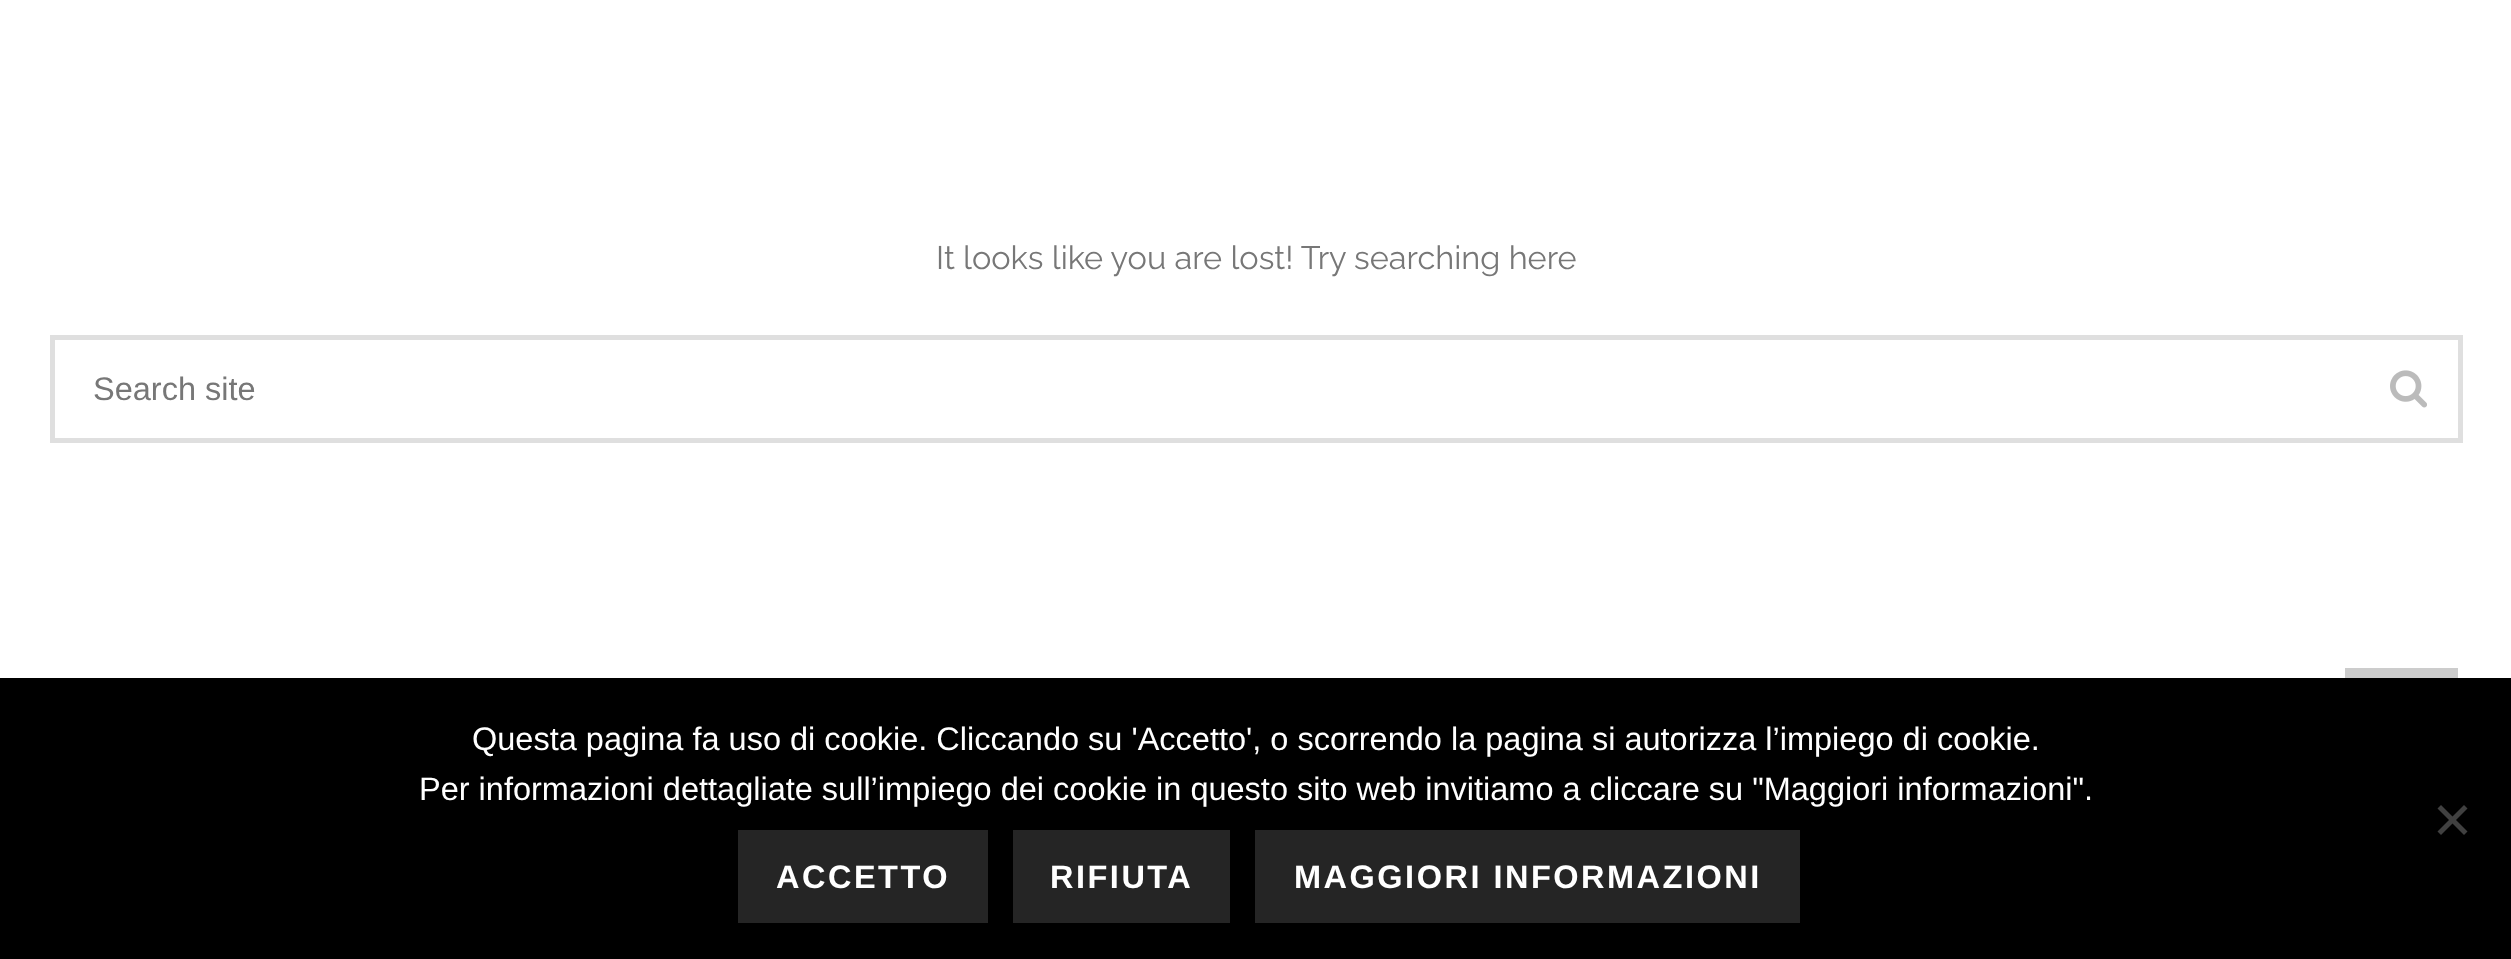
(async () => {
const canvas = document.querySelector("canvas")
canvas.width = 2511
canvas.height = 959
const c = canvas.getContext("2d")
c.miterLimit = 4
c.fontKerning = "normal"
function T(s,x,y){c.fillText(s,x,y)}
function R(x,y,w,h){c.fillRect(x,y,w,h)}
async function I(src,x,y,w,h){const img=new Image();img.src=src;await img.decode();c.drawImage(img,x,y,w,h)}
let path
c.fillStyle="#fff"
R(0,0,2511,959)
c.font="32.5px Raleway"
c.fillStyle="#777"
T("It looks like you are lost! Try searching here",936,269)
c.strokeStyle="#dfdfdf"
c.lineWidth=5
c.strokeRect(52.5,337.5,2408,103)
c.font="32.5px Liberation Sans"
T("Search site",93,400)
await I("1.png",2390,370,37,38)
c.fillStyle="#ccc"
R(2345,668,113,10)
c.fillStyle="#000"
R(0,678,2511,281)
c.fillStyle="#fff"
T("Questa pagina fa uso di cookie. Cliccando su 'Accetto', o scorrendo la pagina si autorizza l’impiego di cookie.",472,750)
T("Per informazioni dettagliate sull’impiego dei cookie in questo sito web invitiamo a cliccare su \"Maggiori informazioni\".",419,800)
c.fillStyle="#404040"
path = new Path2D("M2464 805l3.5 3.5l-26.5 26.5l-3.5-3.5z")
c.fill(path)
path = new Path2D("M2437.5 808.5l3.5-3.5l26.5 26.5l-3.5 3.5z")
c.fill(path)
c.fillStyle="#252525"
R(738,830,250,93)
c.letterSpacing="2.5px"
c.font="bold 32.5px Liberation Sans"
c.fillStyle="#fff"
T("ACCETTO",776,888)
c.fillStyle="#252525"
R(1013,830,217,93)
c.fillStyle="#fff"
T("RIFIUTA",1050,888)
c.fillStyle="#252525"
R(1255,830,545,93)
c.fillStyle="#fff"
T("MAGGIORI INFORMAZIONI",1294,888)
})()
